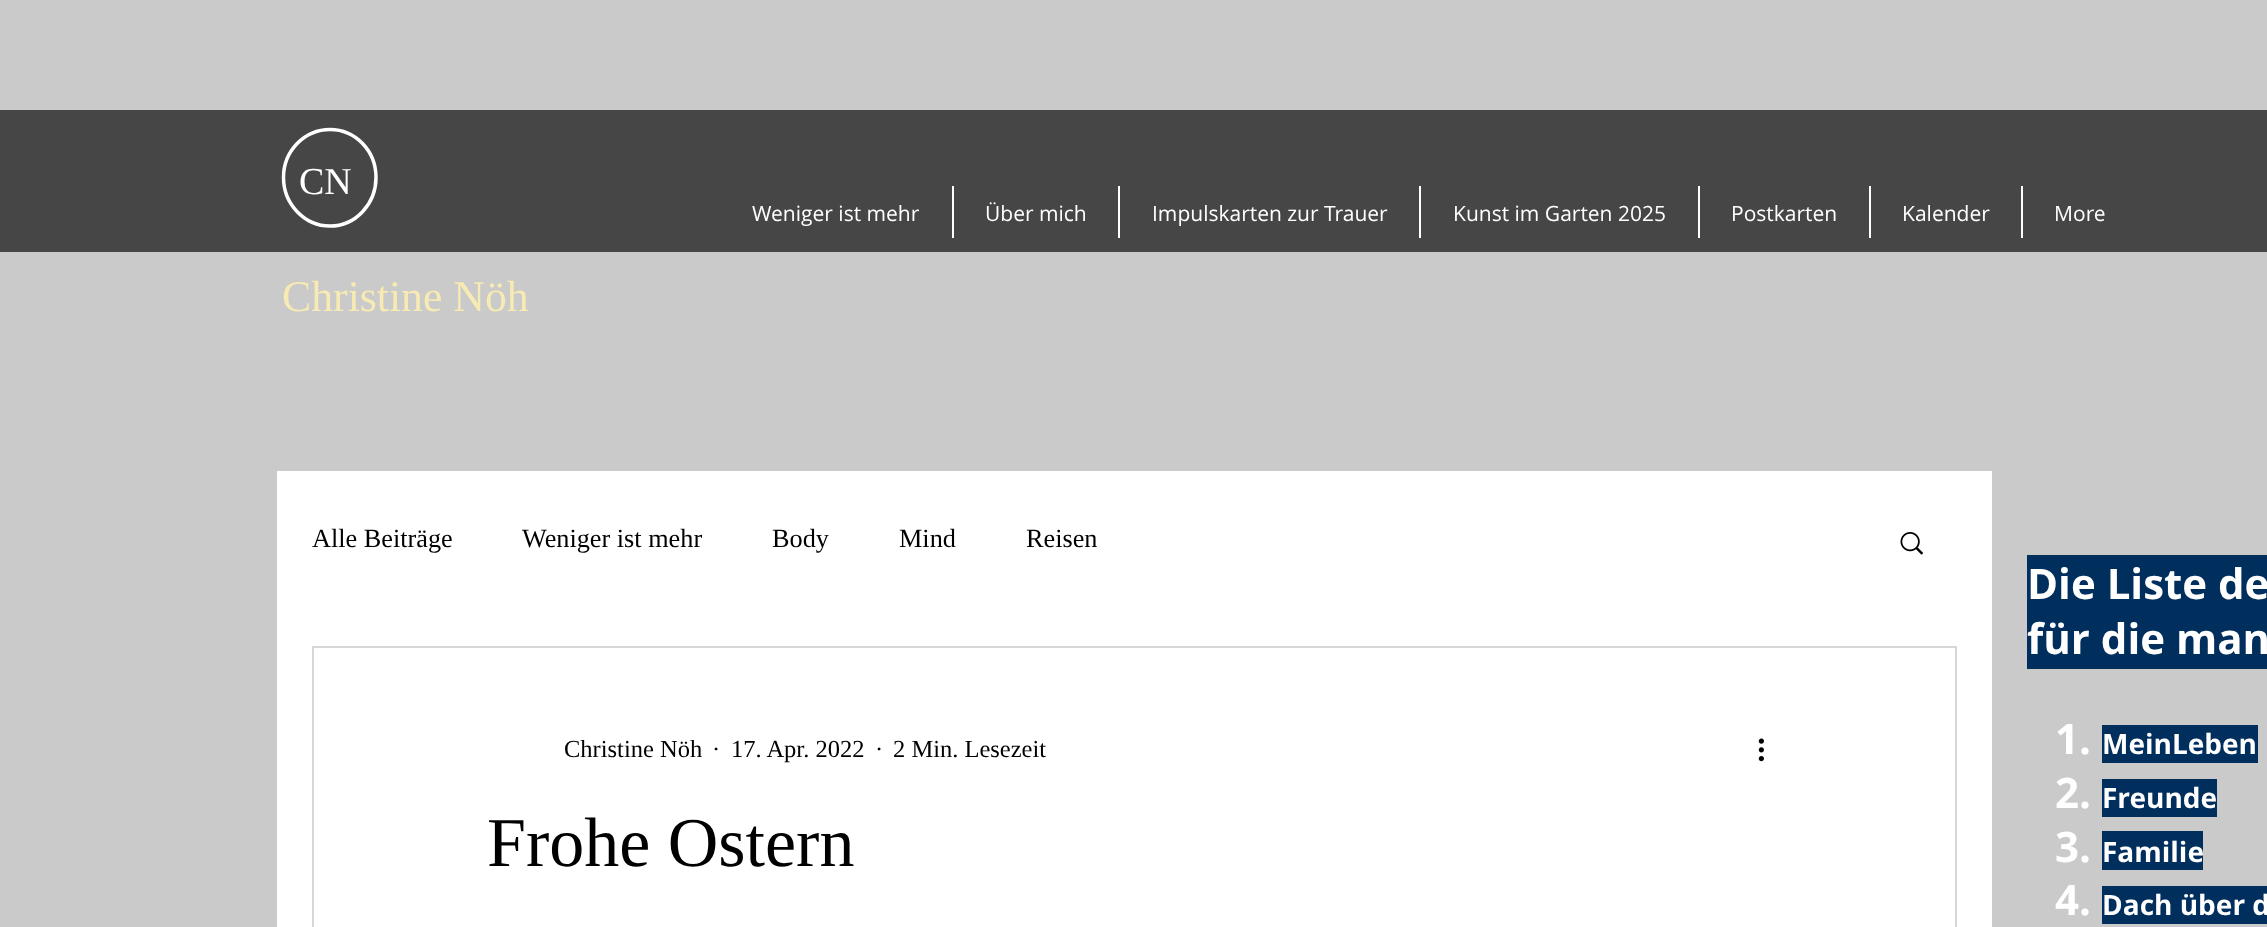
(async () => {
const canvas = document.querySelector("canvas")
canvas.width = 2267
canvas.height = 927
const c = canvas.getContext("2d")
c.miterLimit = 4
c.fontKerning = "normal"
function T(s,x,y){c.fillText(s,x,y)}
function R(x,y,w,h){c.fillRect(x,y,w,h)}
async function I(src,x,y,w,h){const img=new Image();img.src=src;await img.decode();c.drawImage(img,x,y,w,h)}
let path
c.fillStyle="#cacaca"
R(0,0,2267,927)
c.fillStyle="#464646"
R(0,110,2267,142)
path = new Path2D("M330 129.5c25.5 0 46 21.5 46 48c0 26.5-20.5 48.5-46 48.5c-25.5 0-46.5-22-46.5-48.5c0-26.5 21-48 46.5-48z")
c.strokeStyle="#fff"
c.lineWidth=3.5
c.stroke(path)
c.font="38px Liberation Serif"
c.fillStyle="#fff"
T("CN",299,194)
c.font="21px Open Sans"
T("Weniger ist mehr",752,221)
R(952,186,2,52)
T("Über mich",985,221)
R(1118,186,2,52)
T("Impulskarten zur Trauer",1152,221)
R(1419,186,2,52)
T("Kunst im Garten 2025",1453,221)
R(1698,186,2,52)
T("Postkarten",1731,221)
R(1869,186,2,52)
T("Kalender",1902,221)
R(2021,186,2,52)
T("More",2054,221)
c.font="43.75px Liberation Serif"
c.fillStyle="#f7eab3"
T("Christine Nöh",282,311)
c.fillStyle="#fff"
R(277,471,1715,456)
c.font="26.25px Liberation Serif"
c.fillStyle="#000"
T("Alle Beiträge",312,547)
T("Weniger ist mehr",522,547)
T("Body",772,547)
T("Mind",899,547)
T("Reisen",1026,547)
await I("1.png",1900,532,23,23)
c.strokeStyle="#d7d7d7"
c.lineWidth=2
c.strokeRect(313,647,1643,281)
c.font="24.5px Liberation Serif"
T("Christine Nöh",564,757)
T("·",712,757)
T("17. Apr. 2022",731,757)
T("·",875,757)
T("2 Min. Lesezeit",893,757)
await I("2.png",1758,738,6,24)
c.font="70px Liberation Serif"
T("Frohe Ostern",487,866)
c.fillStyle="#002e5d"
R(2027,555,240,114)
c.font="bold 42px Open Sans"
c.fillStyle="#fff"
T("Die Liste de",2027,599)
T("für die man",2027,654)
T("1.",2055,754)
c.fillStyle="#002e5d"
R(2102,725,156,38)
c.font="bold 28px Open Sans"
c.fillStyle="#fff"
T("MeinLeben",2102,754)
c.font="bold 42px Open Sans"
T("2.",2055,808)
c.fillStyle="#002e5d"
R(2102,779,115,38)
c.font="bold 28px Open Sans"
c.fillStyle="#fff"
T("Freunde",2102,808)
c.font="bold 42px Open Sans"
T("3.",2055,862)
c.fillStyle="#002e5d"
R(2102,831,101,39)
c.font="bold 28px Open Sans"
c.fillStyle="#fff"
T("Familie",2102,862)
c.font="bold 42px Open Sans"
T("4.",2055,915)
c.fillStyle="#002e5d"
R(2102,886,165,38)
c.font="bold 28px Open Sans"
c.fillStyle="#fff"
T("Dach über d",2102,915)
})()
